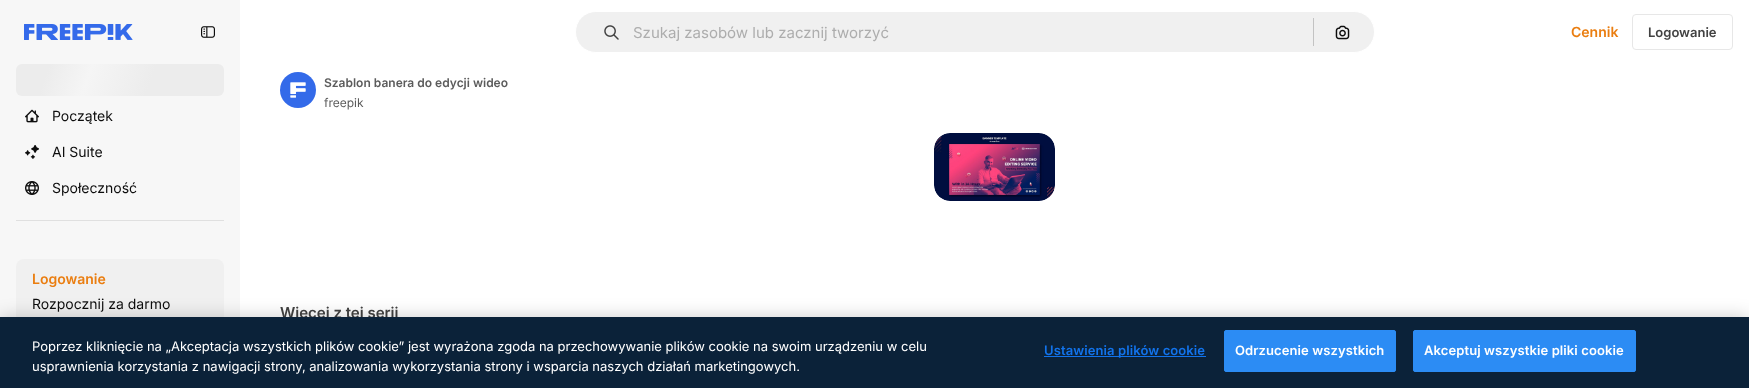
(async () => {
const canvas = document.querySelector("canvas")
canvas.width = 1749
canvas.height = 388
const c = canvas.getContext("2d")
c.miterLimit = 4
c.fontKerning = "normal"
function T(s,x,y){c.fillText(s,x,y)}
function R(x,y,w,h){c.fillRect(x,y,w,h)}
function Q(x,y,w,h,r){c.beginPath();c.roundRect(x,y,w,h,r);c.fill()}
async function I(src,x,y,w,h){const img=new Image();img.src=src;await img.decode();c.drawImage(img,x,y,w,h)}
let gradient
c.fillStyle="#fff"
R(0,0,1749,388)
c.fillStyle="#f7f7f7"
R(0,0,240,317)
await I("1.png",24,24,109,16)
await I("2.png",201,26,14,12)
gradient = c.createLinearGradient(35,11,413,149)
gradient.addColorStop(.08,"#ececec")
gradient.addColorStop(.18,"#f5f5f5")
gradient.addColorStop(.33,"#ececec")
c.fillStyle = gradient
Q(16,64,208,32,6)
await I("3.png",25,109,14,14)
c.font="14px Inter"
c.fillStyle="#0d0d0d"
T("Początek",52,121)
await I("4.png",25,145,14,14)
T("AI Suite",52,157)
await I("5.png",25,181,14,14)
T("Społeczność",52,193)
c.fillStyle="#e0e0e0"
R(16,220,208,1)
c.fillStyle="#f0f0f0"
Q(16,259,208,65,8)
c.font="600 14px Inter"
c.fillStyle="#ea7e11"
T("Logowanie",32,284)
c.font="14px Inter"
c.fillStyle="#0d0d0d"
T("Rozpocznij za darmo",32,309)
c.fillStyle="#f0f0f0"
c.beginPath()
c.roundRect(575.5,11.5,799,41,20.5)
c.fill()
c.strokeStyle="#fff"
c.stroke()
await I("6.png",604,25,15,15)
c.font="15px Inter"
c.fillStyle="#adadad"
T("Szukaj zasobów lub zacznij tworzyć",633,38)
c.fillStyle="#c3c3c3"
R(1313,18,1,28)
await I("7.png",1335,25,15,15)
c.font="600 14px Inter"
c.fillStyle="#ea7e11"
T("Cennik",1571,37)
c.beginPath()
c.roundRect(1632.5,14.5,100,35,3.5)
c.strokeStyle="#e7e7e7"
c.stroke()
c.font="600 13px Inter"
c.fillStyle="#424242"
T("Logowanie",1648,37)
await I("8.png",280,72,36,36)
c.font="600 12px Inter"
c.fillStyle="#5c5c5c"
T("Szablon banera do edycji wideo",324,87)
c.font="12px Inter"
T("freepik",324,107)
await I("9.png",934,133,121,68)
c.font="600 15px Inter"
c.fillStyle="#424242"
T("Więcej z tej serii",280,318)
c.fillStyle="#00000033"
c.filter="blur(9px)"
c.beginPath()
c.rect(0,317,1749,71)
c.fill()
c.filter="none"
c.fillStyle="#0b2239"
R(0,317,1749,71)
c.font="13px Inter"
c.fillStyle="#fff"
T("Poprzez kliknięcie na „Akceptacja wszystkich plików cookie” jest wyrażona zgoda na przechowywanie plików cookie na swoim urządzeniu w celu",32,351)
T("usprawnienia korzystania z nawigacji strony, analizowania wykorzystania strony i wsparcia naszych działań marketingowych.",32,371)
c.fillStyle="#1273eb"
R(1044,356,162,1)
c.letterSpacing="0.1px"
c.font="600 13px Inter"
T("Ustawienia plików cookie",1044,355)
c.fillStyle="#2c8cf4"
c.beginPath()
c.roundRect(1224.5,330.5,171,41,1.5)
c.fill()
c.strokeStyle="#2c8cf4"
c.stroke()
c.fillStyle="#fff"
T("Odrzucenie wszystkich",1235,355)
c.fillStyle="#2c8cf4"
c.beginPath()
c.roundRect(1413.5,330.5,222,41,1.5)
c.fill()
c.stroke()
c.fillStyle="#fff"
T("Akceptuj wszystkie pliki cookie",1424,355)
})()
